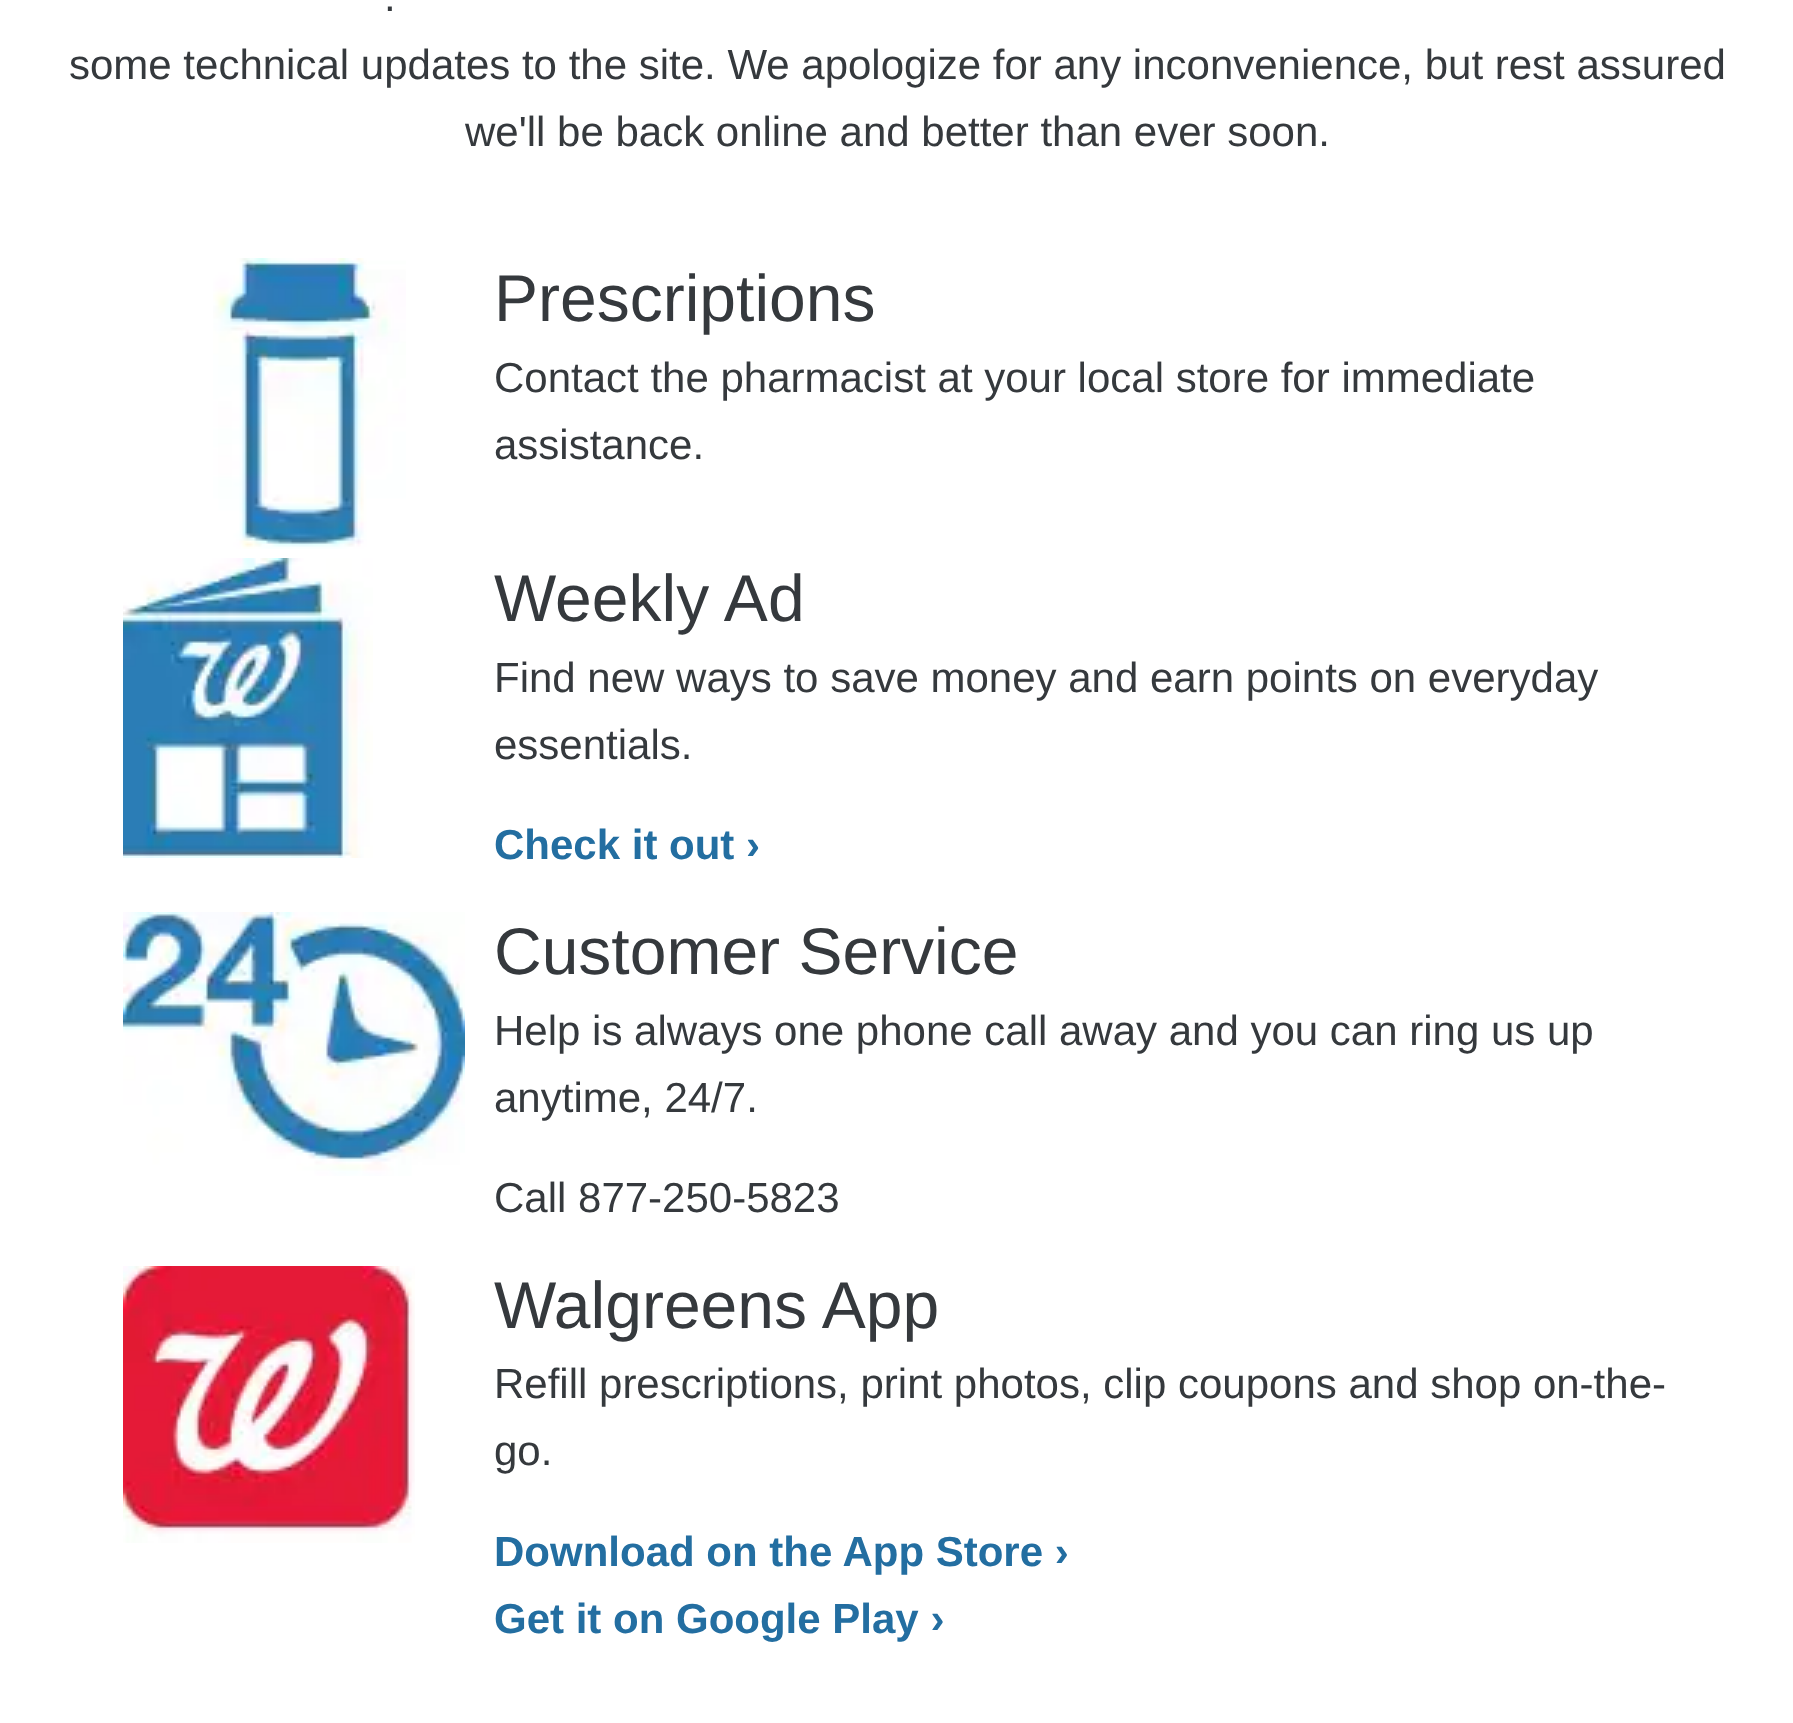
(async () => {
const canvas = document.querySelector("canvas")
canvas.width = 1793
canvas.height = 1723
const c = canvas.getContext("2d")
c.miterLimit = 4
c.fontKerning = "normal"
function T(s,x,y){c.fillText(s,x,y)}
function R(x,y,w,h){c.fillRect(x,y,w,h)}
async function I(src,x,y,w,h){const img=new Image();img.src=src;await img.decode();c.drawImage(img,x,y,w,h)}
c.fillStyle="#fff"
R(0,0,1793,1723)
c.font="42px Liberation Sans"
c.fillStyle="#35393d"
T(".",384,11)
T("some technical updates to the site. We apologize for any inconvenience, but rest assured",69,79)
T("we'll be back online and better than ever soon.",465,146)
await I("1.png",213,258,193,291)
c.font="66px Liberation Sans"
T("Prescriptions",494,321)
c.font="42px Liberation Sans"
T("Contact the pharmacist at your local store for immediate",494,392)
T("assistance.",494,459)
await I("2.png",123,558,250,300)
c.font="66px Liberation Sans"
T("Weekly Ad",494,621)
c.font="42px Liberation Sans"
T("Find new ways to save money and earn points on everyday",494,692)
T("essentials.",494,759)
c.font="bold 42px Liberation Sans"
c.fillStyle="#236ea1"
T("Check it out ›",494,859)
await I("3.png",123,912,342,264)
c.font="66px Liberation Sans"
c.fillStyle="#35393d"
T("Customer Service",494,974)
c.font="42px Liberation Sans"
T("Help is always one phone call away and you can ring us up",494,1045)
T("anytime, 24/7.",494,1112)
T("Call 877-250-5823",494,1212)
await I("4.png",123,1266,292,277)
c.font="66px Liberation Sans"
T("Walgreens App",494,1328)
c.font="42px Liberation Sans"
T("Refill prescriptions, print photos, clip coupons and shop on-the-",494,1398)
T("go.",494,1465)
c.font="bold 42px Liberation Sans"
c.fillStyle="#236ea1"
T("Download on the App Store ›",494,1566)
T("Get it on Google Play ›",494,1633)
})()
